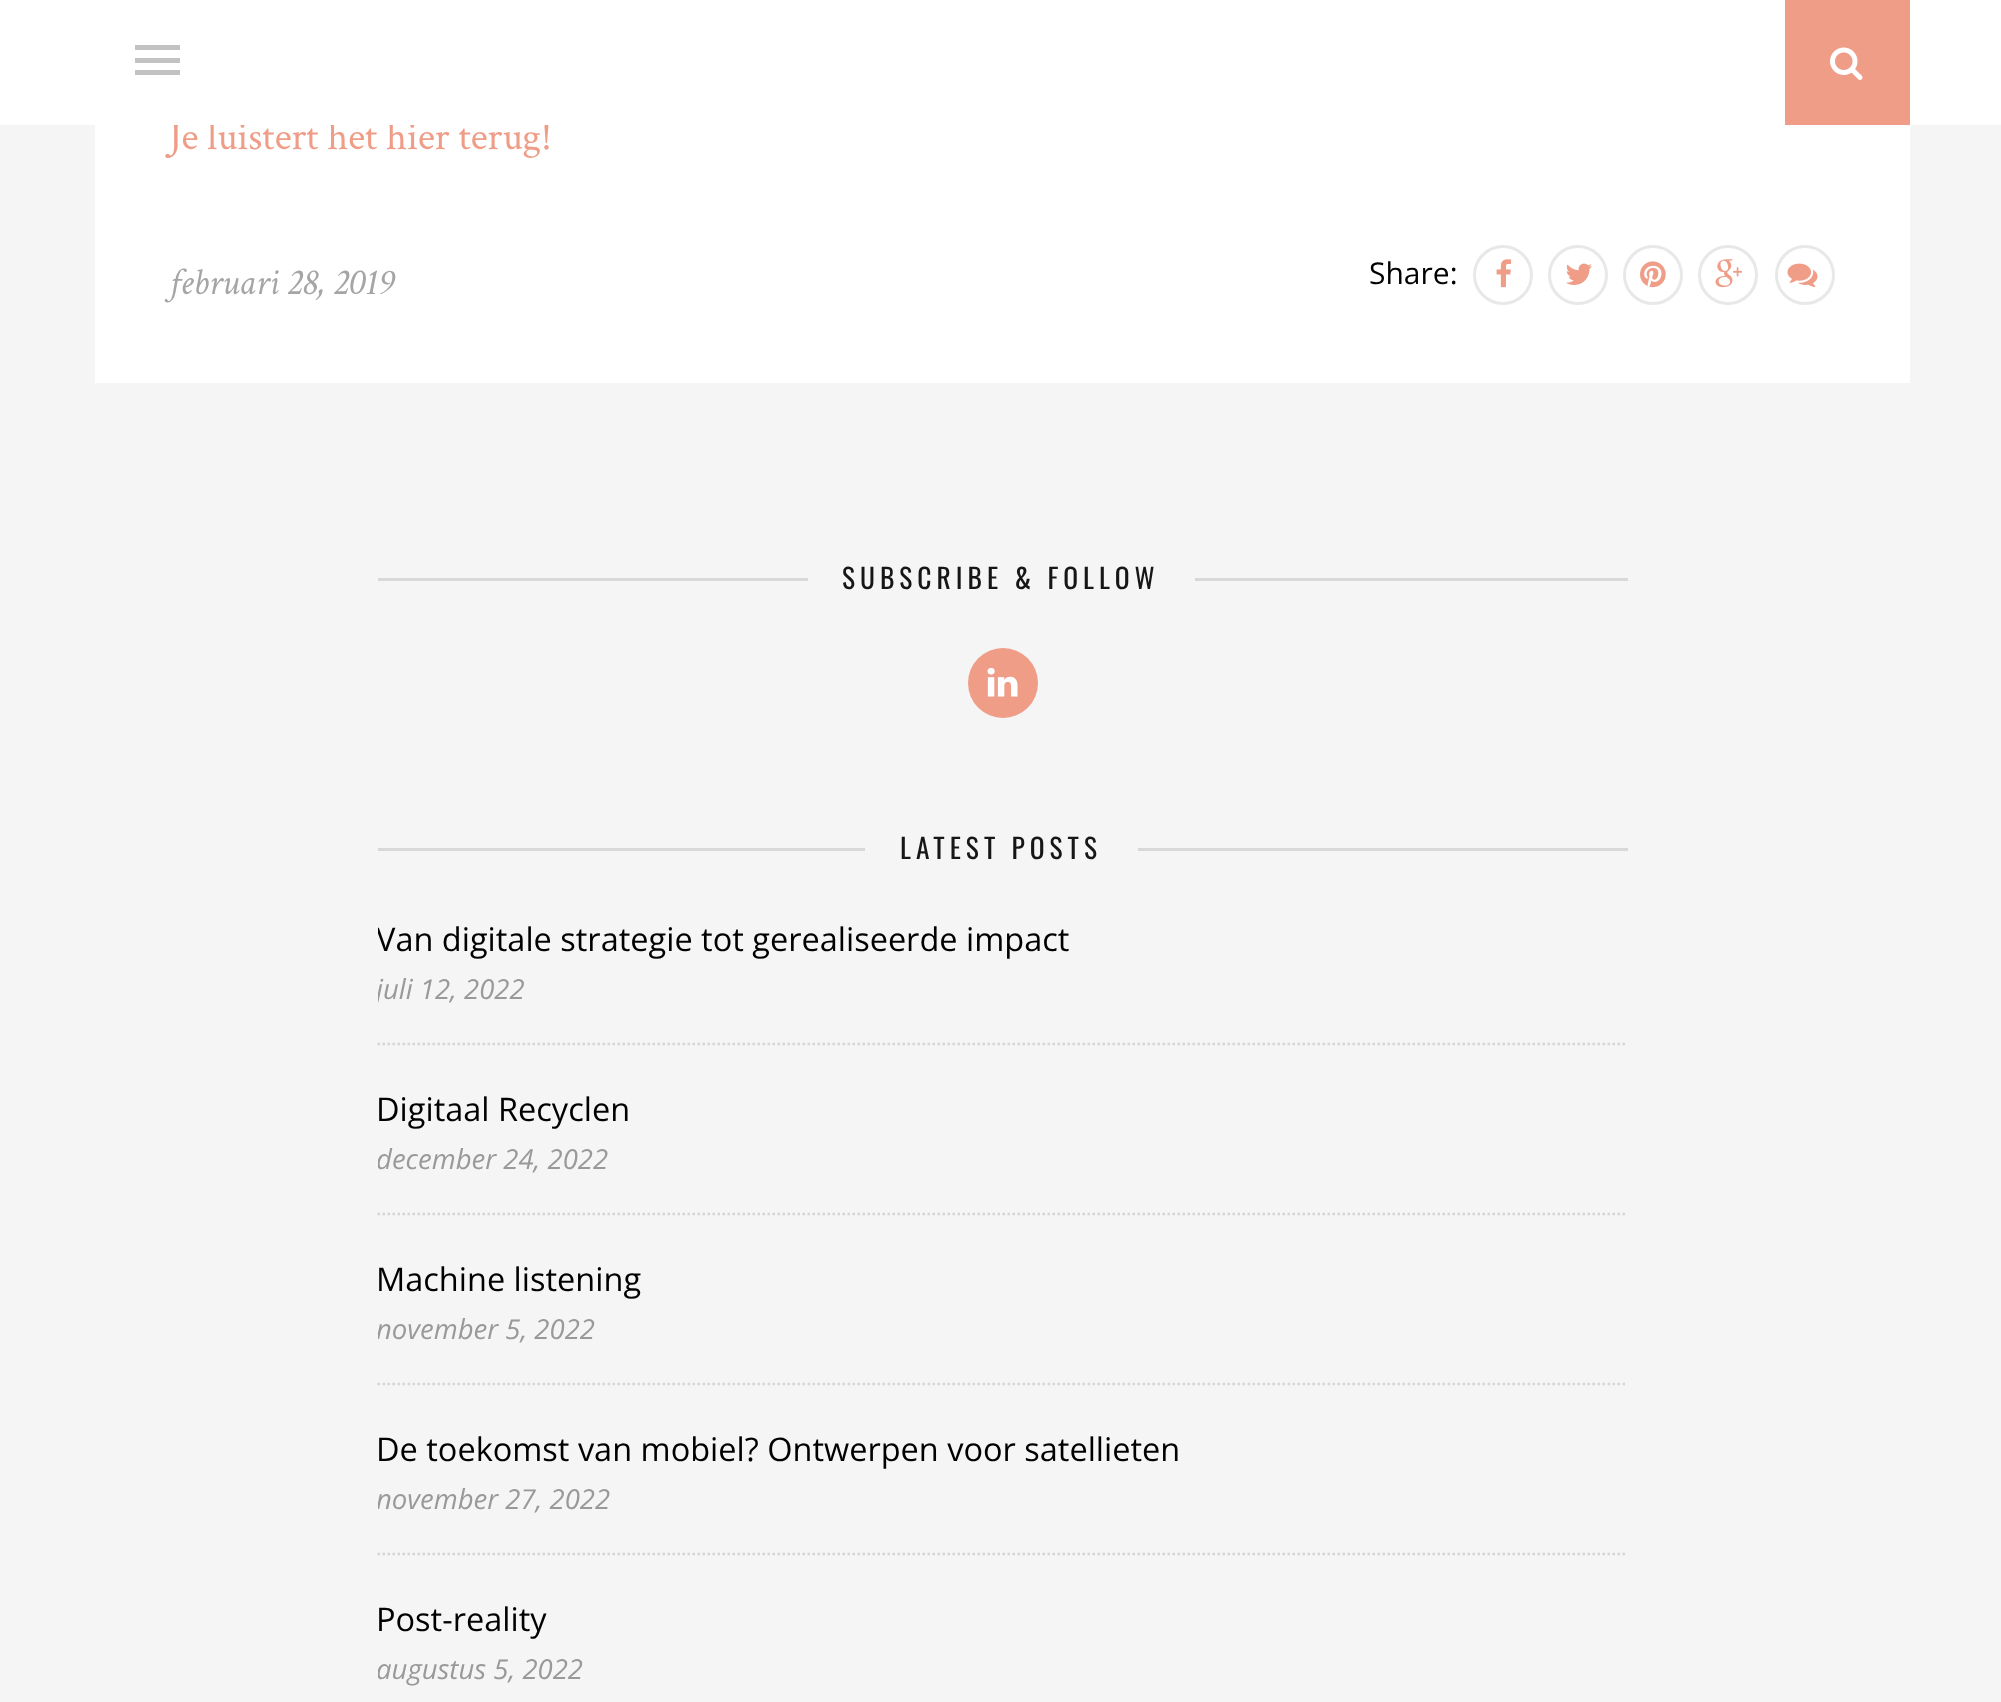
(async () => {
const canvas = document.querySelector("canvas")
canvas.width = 2001
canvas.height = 1702
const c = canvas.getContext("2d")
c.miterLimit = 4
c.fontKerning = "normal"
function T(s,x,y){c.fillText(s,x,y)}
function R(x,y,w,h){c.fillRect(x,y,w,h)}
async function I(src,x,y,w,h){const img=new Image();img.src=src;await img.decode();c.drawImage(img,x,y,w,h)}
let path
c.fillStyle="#f5f5f5"
R(0,0,2001,1702)
c.fillStyle="#fff"
R(95,125,1815,258)
c.font="40px Crimson Text"
c.fillStyle="#ef9d87"
T("Je luistert het hier terug!",169,149)
c.fillStyle="#fff"
R(0,0,2001,125)
c.fillStyle="#c2c2c2"
R(135,45,45,5)
R(135,58,45,5)
R(135,70,45,5)
c.fillStyle="#ef9d87"
R(1785,0,125,125)
await I("1.png",1830,47,33,33)
c.font="italic 37.5px Crimson Text"
c.fillStyle="#a5a5a5"
T("februari 28, 2019",169,294)
c.font="30px Open Sans"
c.fillStyle="#000"
T("Share:",1369,284)
c.beginPath()
c.arc(1503,275,28.5,0,7)
c.strokeStyle="#e8e8e8"
c.lineWidth=3
c.stroke()
await I("2.png",1496,259,16,29)
c.beginPath()
c.arc(1578,275,28.5,0,7)
c.stroke()
await I("3.png",1566,263,26,22)
c.beginPath()
c.arc(1653,275,28.5,0,7)
c.stroke()
await I("4.png",1640,261,26,27)
c.beginPath()
c.arc(1728,275,28.5,0,7)
c.stroke()
await I("5.png",1715,259,27,29)
c.beginPath()
c.arc(1805,275,28.5,0,7)
c.stroke()
await I("6.png",1787,263,31,25)
c.fillStyle="#d8d8d8"
R(378,578,430,3)
c.letterSpacing="5px"
c.font="27.5px Oswald"
c.fillStyle="#161616"
T("SUBSCRIBE & FOLLOW",842,589)
c.fillStyle="#d8d8d8"
R(1195,578,433,3)
c.fillStyle="#ef9d87"
c.beginPath()
c.arc(1003,683,35,0,7)
c.fill()
await I("7.png",987,667,31,30)
c.fillStyle="#d8d8d8"
R(378,848,487,3)
c.fillStyle="#161616"
T("LATEST POSTS",900,859)
c.fillStyle="#d8d8d8"
R(1138,848,490,3)
path = new Path2D("M377.5 1044h1250")
c.strokeStyle="#d5d5d5"
c.lineWidth=2.5
c.setLineDash([2.5,2.5])
c.stroke(path)
c.save()
c.beginPath()
c.rect(378,918,1250,92)
c.clip()
c.letterSpacing="0px"
c.font="32.5px Open Sans"
c.fillStyle="#000"
T("Van digitale strategie tot gerealiseerde impact",376,951)
c.font="italic 27.5px Open Sans"
c.fillStyle="#999"
T("juli 12, 2022",376,999)
c.restore()
path = new Path2D("M377.5 1214h1250")
c.stroke(path)
c.letterSpacing="0px"
c.font="32.5px Open Sans"
c.fillStyle="#000"
T("Digitaal Recyclen",376,1121)
c.save()
c.beginPath()
c.rect(378,1088,1250,92)
c.clip()
c.font="italic 27.5px Open Sans"
c.fillStyle="#999"
T("december 24, 2022",376,1169)
c.restore()
path = new Path2D("M377.5 1384h1250")
c.stroke(path)
T("Machine listening",376,1291)
c.save()
c.beginPath()
c.rect(378,1258,1250,92)
c.clip()
c.font="italic 27.5px Open Sans"
c.fillStyle="#999"
T("november 5, 2022",376,1339)
c.restore()
path = new Path2D("M377.5 1554h1250")
c.stroke(path)
T("De toekomst van mobiel? Ontwerpen voor satellieten",376,1461)
c.save()
c.beginPath()
c.rect(378,1428,1250,92)
c.clip()
c.font="italic 27.5px Open Sans"
c.fillStyle="#999"
T("november 27, 2022",376,1509)
c.restore()
T("Post-reality",376,1631)
c.save()
c.beginPath()
c.rect(378,1598,1250,92)
c.clip()
c.font="italic 27.5px Open Sans"
c.fillStyle="#999"
T("augustus 5, 2022",376,1679)
c.restore()
})()
